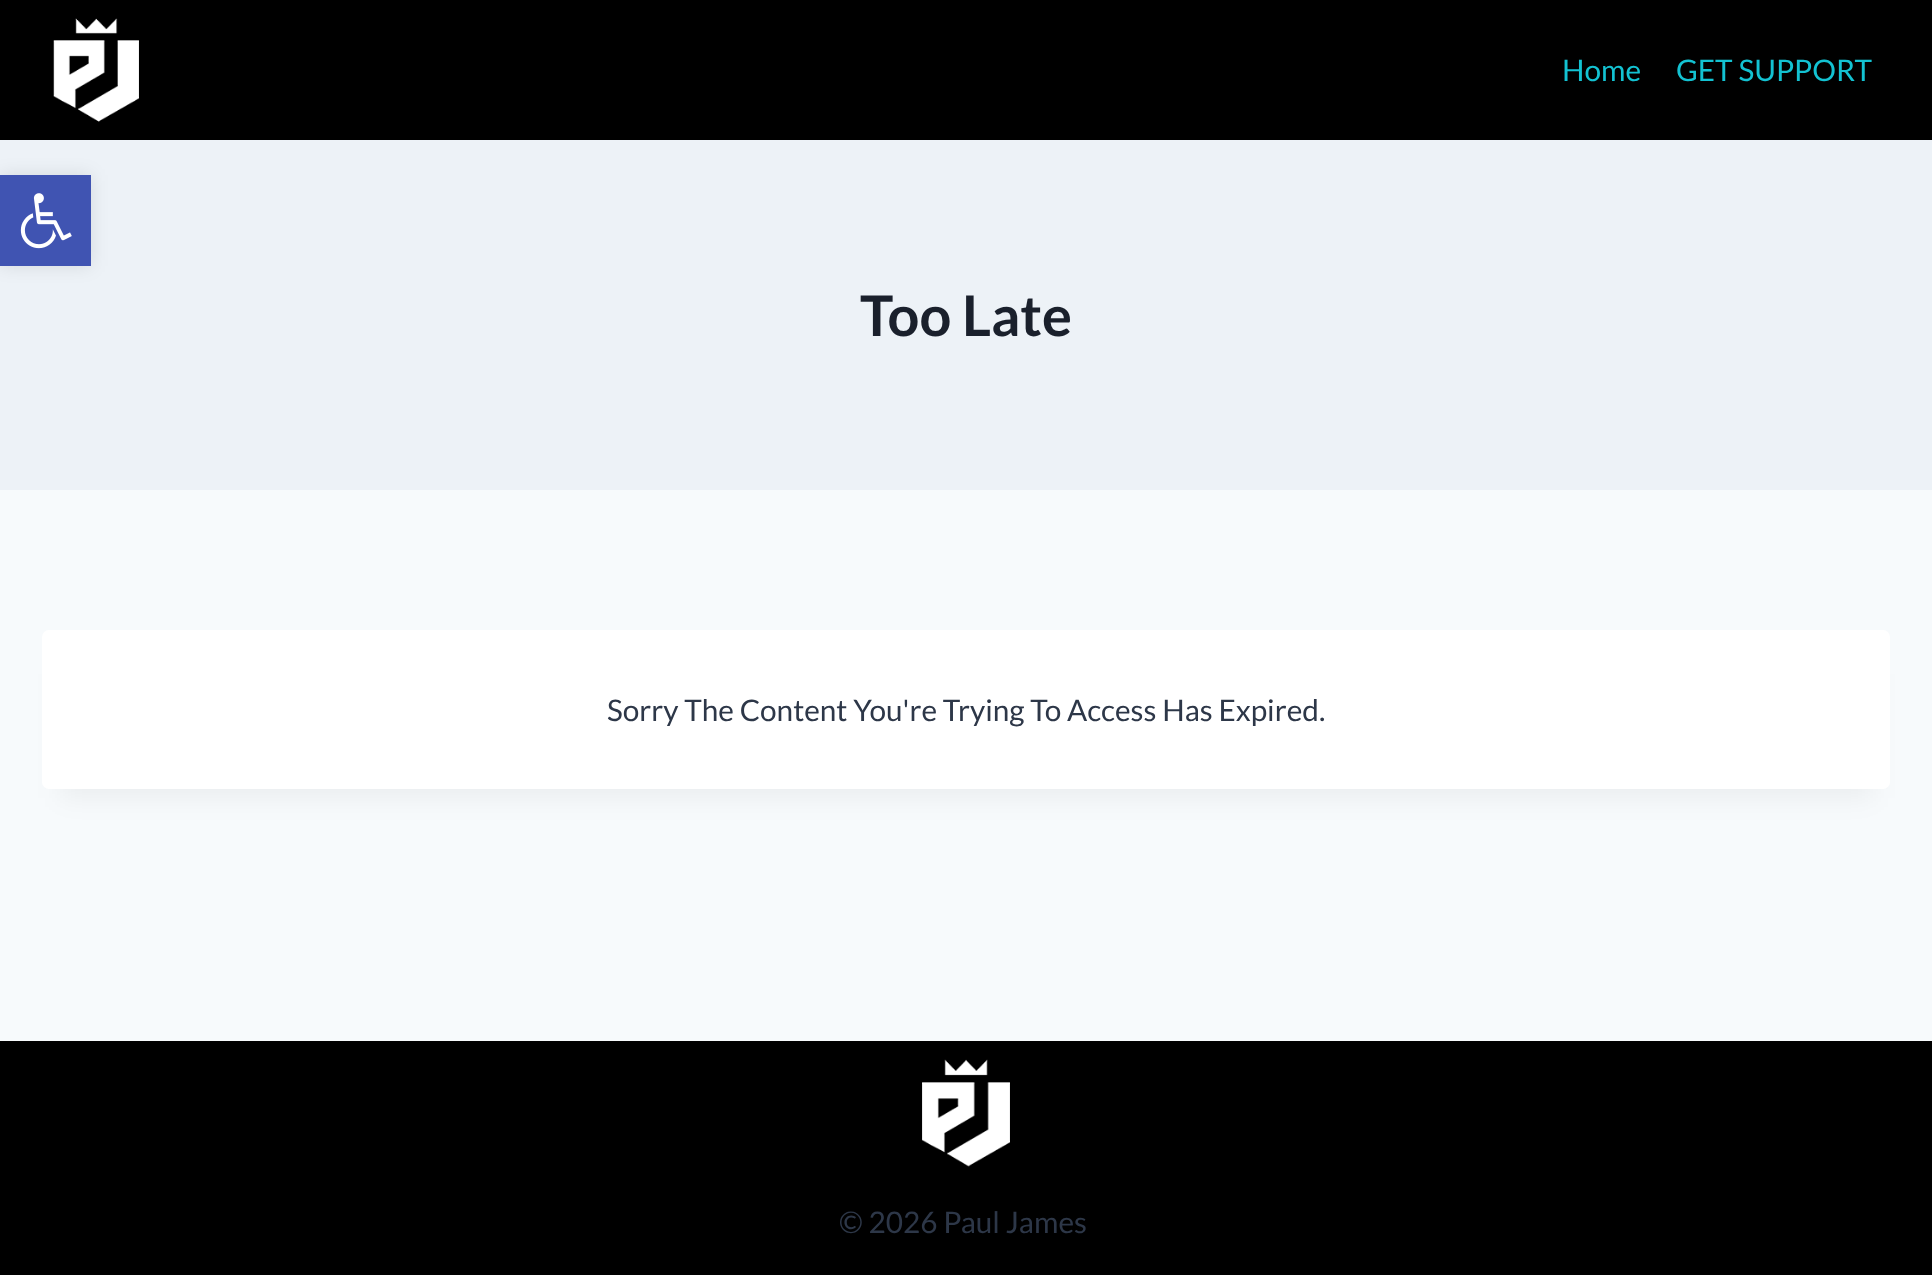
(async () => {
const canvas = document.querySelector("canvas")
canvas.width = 1932
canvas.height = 1275
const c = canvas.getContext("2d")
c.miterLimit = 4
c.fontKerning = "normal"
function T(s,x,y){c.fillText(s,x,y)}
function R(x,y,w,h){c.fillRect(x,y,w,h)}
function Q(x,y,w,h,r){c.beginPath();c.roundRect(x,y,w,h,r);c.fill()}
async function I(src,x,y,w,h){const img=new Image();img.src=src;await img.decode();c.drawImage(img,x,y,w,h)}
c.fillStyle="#f7fafc"
R(0,0,1932,1275)
c.fillStyle="#edf2f7"
R(0,140,1932,350)
c.fillStyle="#0000001a"
c.filter="blur(9px)"
c.beginPath()
c.rect(0,175,91,91)
c.fill()
c.filter="none"
c.fillStyle="#4054b2"
R(0,175,91,91)
await I("1.png",20,193,52,56)
c.fillStyle="#000"
R(0,0,1932,140)
await I("2.png",53,18,86,104)
c.font="29.75px Lato"
c.fillStyle="#13c2d2"
T("Home",1562,81)
T("GET SUPPORT",1676,81)
c.font="bold 56px Lato"
c.fillStyle="#1a202c"
T("Too Late",860,336)
c.fillStyle="#0000000d"
c.filter="blur(13px)"
c.beginPath()
c.rect(60,674,1813,124)
c.fill()
c.filter="none"
c.fillStyle="#fff"
Q(42,630,1848,159,7)
c.font="29.75px Lato"
c.fillStyle="#2d3748"
T("Sorry The Content You're Trying To Access Has Expired.",607,721)
c.fillStyle="#000"
R(0,1041,1932,234)
await I("3.png",922,1059,88,108)
c.fillStyle="#2d3748"
T("© 2026 Paul James",839,1233)
})()
